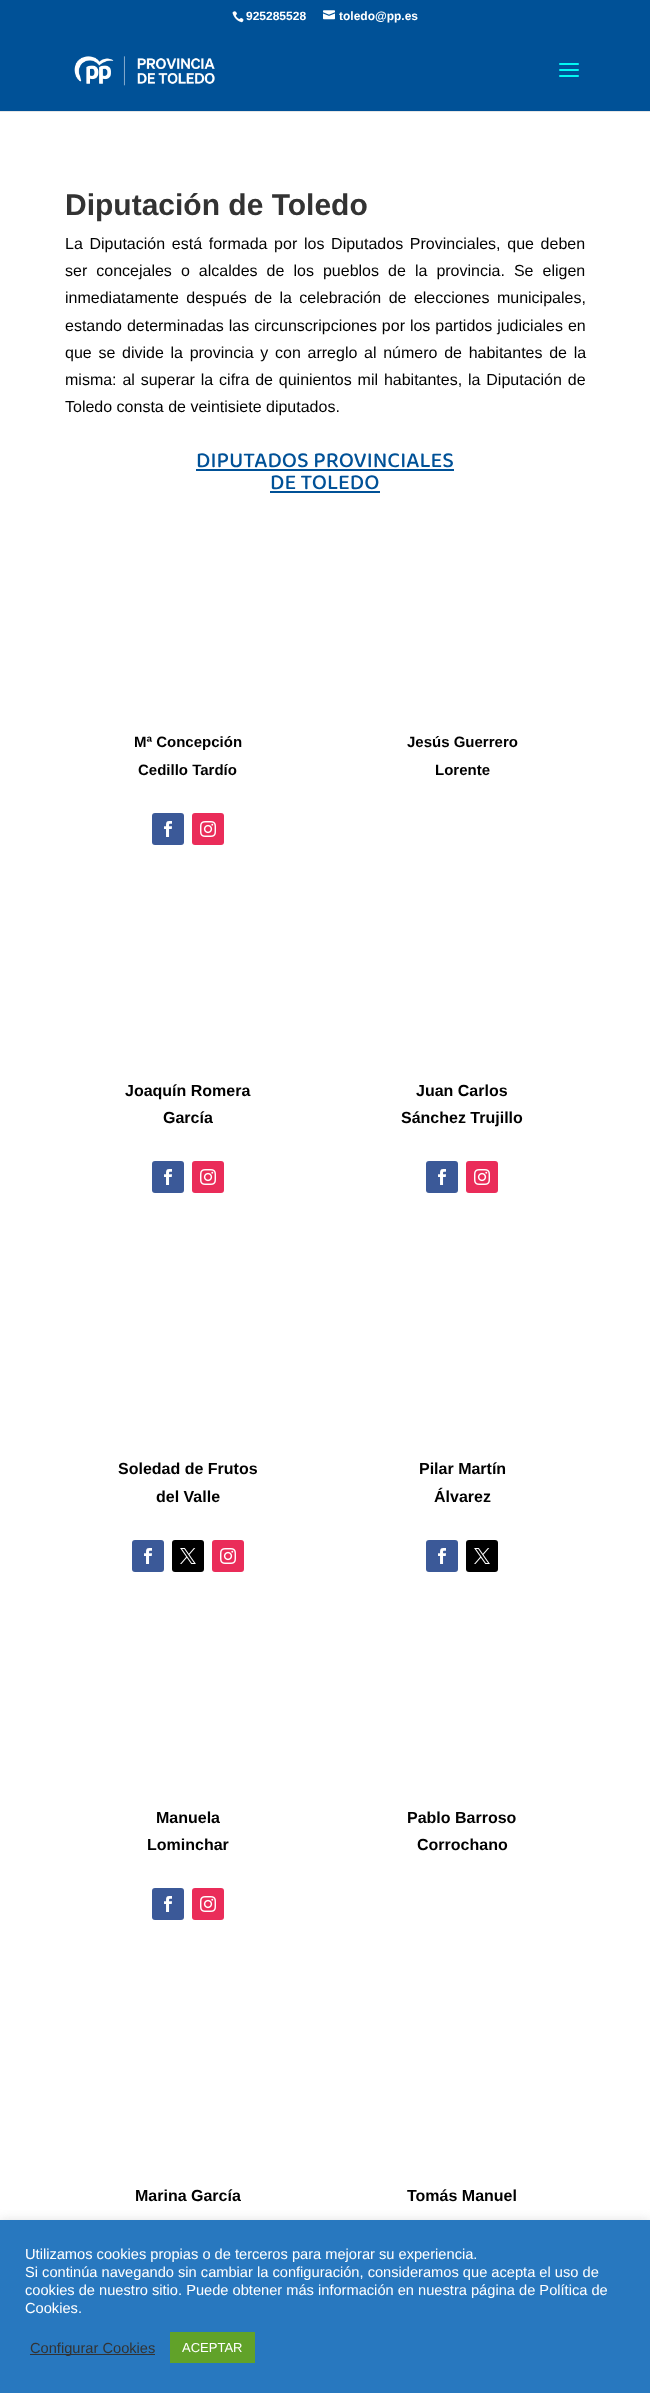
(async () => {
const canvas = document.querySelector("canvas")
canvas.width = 650
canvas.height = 2393
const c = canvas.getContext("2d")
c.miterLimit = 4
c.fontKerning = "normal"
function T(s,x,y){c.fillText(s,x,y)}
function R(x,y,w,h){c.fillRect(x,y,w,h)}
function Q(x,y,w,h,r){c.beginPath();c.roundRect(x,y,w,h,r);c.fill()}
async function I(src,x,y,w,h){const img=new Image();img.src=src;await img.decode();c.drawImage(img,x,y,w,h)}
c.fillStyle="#fff"
R(0,0,650,2393)
c.fillStyle="#e6e6e6"
R(0,111,650,1)
c.fillStyle="#005197"
R(0,0,650,111)
await I("1.png",74,56,141,30)
await I("2.png",559,63,20,14)
await I("3.png",232,11,12,12)
c.font="bold 12px Liberation Sans"
c.fillStyle="#fff"
T("925285528",246,20)
await I("4.png",323,10,12,10)
T("toledo@pp.es",339,20)
c.font="bold 30px Liberation Sans"
c.fillStyle="#333"
T("Diputación de Toledo",65,215)
c.wordSpacing="2.25px"
c.font="16px Liberation Sans"
c.fillStyle="#000"
T("La Diputación está formada por los Diputados Provinciales, que deben",65,249)
c.wordSpacing="4.6px"
T("ser concejales o alcaldes de los pueblos de la provincia. Se eligen",65,276)
c.wordSpacing="3px"
T("inmediatamente después de la celebración de elecciones municipales,",65,303)
c.wordSpacing="0.5px"
T("estando determinadas las circunscripciones por los partidos judiciales en",65,331)
c.wordSpacing="2.25px"
T("que se divide la provincia y con arreglo al número de habitantes de la",65,358)
c.wordSpacing="1.4px"
T("misma: al superar la cifra de quinientos mil habitantes, la Diputación de",65,385)
c.wordSpacing="0px"
T("Toledo consta de veintisiete diputados.",65,412)
c.font="500 22px 'Baloo 2'"
c.fillStyle="#005197"
T("DIPUTADOS PROVINCIALES",196,467)
R(196,469,258,2)
T("DE TOLEDO",270,489)
R(270,491,110,2)
c.font="bold 15px Liberation Sans"
c.fillStyle="#000"
T("Mª Concepción",134,747)
T("Cedillo Tardío",138,775)
c.fillStyle="#3b5998"
Q(152,813,32,32,3)
await I("5.png",164,821,8,16)
c.fillStyle="#ea2c59"
Q(192,813,32,32,3)
await I("6.png",200,821,16,16)
c.fillStyle="#000"
T("Jesús Guerrero",407,747)
T("Lorente",435,775)
c.font="bold 16px Liberation Sans"
T("Joaquín Romera",125,1096)
T("García",163,1123)
c.fillStyle="#3b5998"
Q(152,1161,32,32,3)
await I("5.png",164,1169,8,16)
c.fillStyle="#ea2c59"
Q(192,1161,32,32,3)
await I("6.png",200,1169,16,16)
c.fillStyle="#000"
T("Juan Carlos",416,1096)
T("Sánchez Trujillo",401,1123)
c.fillStyle="#3b5998"
Q(426,1161,32,32,3)
await I("5.png",438,1169,8,16)
c.fillStyle="#ea2c59"
Q(466,1161,32,32,3)
await I("6.png",474,1169,16,16)
c.fillStyle="#000"
T("Soledad de Frutos",118,1474)
T("del Valle",156,1502)
c.fillStyle="#3b5998"
Q(132,1540,32,32,3)
await I("5.png",144,1548,8,16)
c.fillStyle="#000"
Q(172,1540,32,32,3)
await I("7.png",180,1548,16,16)
c.fillStyle="#ea2c59"
Q(212,1540,32,32,3)
await I("6.png",220,1548,16,16)
c.fillStyle="#000"
T("Pilar Martín",419,1474)
T("Álvarez",434,1502)
c.fillStyle="#3b5998"
Q(426,1540,32,32,3)
await I("5.png",438,1548,8,16)
c.fillStyle="#000"
Q(466,1540,32,32,3)
await I("7.png",474,1548,16,16)
T("Manuela",156,1823)
T("Lominchar",147,1850)
c.fillStyle="#3b5998"
Q(152,1888,32,32,3)
await I("5.png",164,1896,8,16)
c.fillStyle="#ea2c59"
Q(192,1888,32,32,3)
await I("6.png",200,1896,16,16)
c.fillStyle="#000"
T("Pablo Barroso",407,1823)
T("Corrochano",417,1850)
T("Marina García",135,2201)
T("Tomás Manuel",407,2201)
c.fillStyle="#acabab4d"
c.filter="blur(5px)"
c.beginPath()
c.rect(0,2219,650,173)
c.fill()
c.filter="none"
c.fillStyle="#2878bf"
R(0,2220,650,173)
c.font="14.65px Liberation Sans"
c.fillStyle="#fff"
T("Utilizamos cookies propias o de terceros para mejorar su experiencia.",25,2259)
T("Si continúa navegando sin cambiar la configuración, consideramos que acepta el uso de",25,2277)
T("cookies de nuestro sitio. Puede obtener más información en nuestra página de Política de",25,2295)
T("Cookies.",25,2313)
c.fillStyle="#333"
R(30,2354,125,1)
T("Configurar Cookies",30,2353)
c.fillStyle="#61a229"
R(170,2332,85,31)
c.font="13px Liberation Sans"
c.fillStyle="#fff"
T("ACEPTAR",182,2352)
})()
